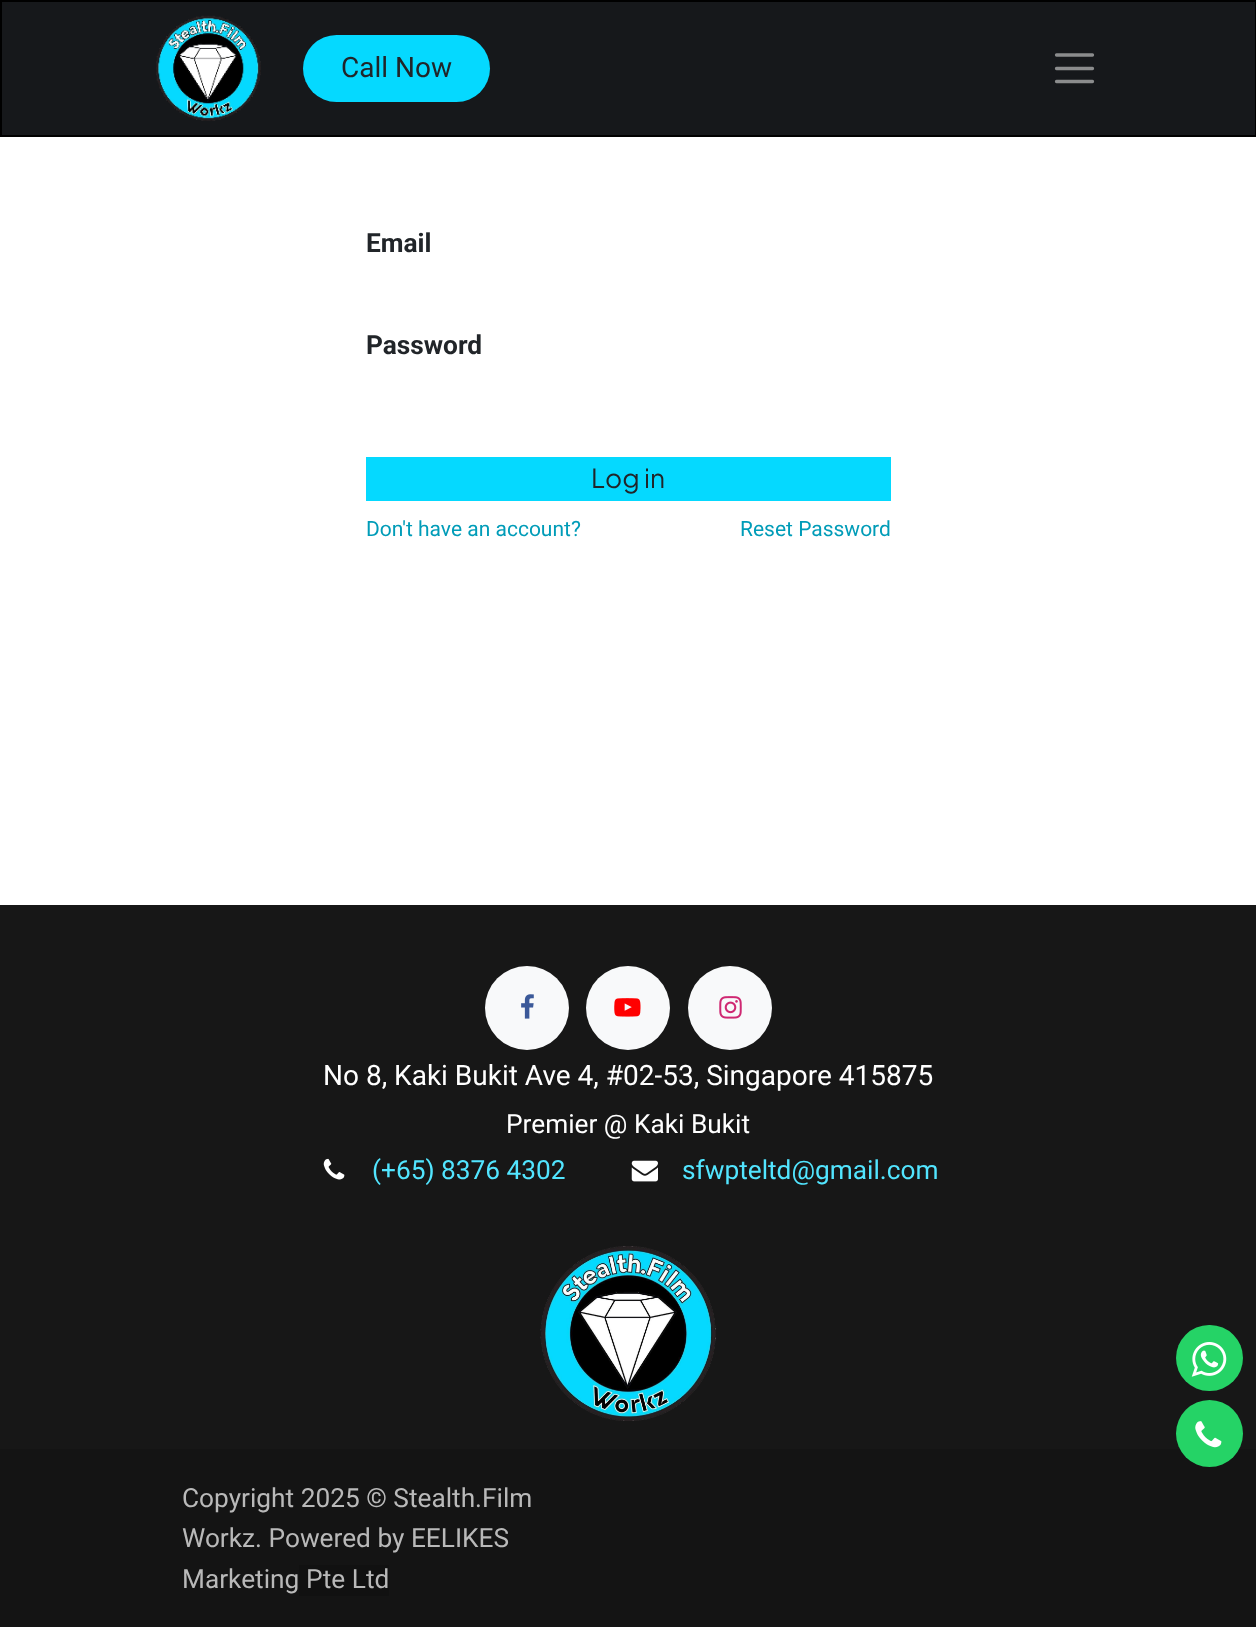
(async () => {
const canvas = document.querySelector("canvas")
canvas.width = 1256
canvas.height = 1627
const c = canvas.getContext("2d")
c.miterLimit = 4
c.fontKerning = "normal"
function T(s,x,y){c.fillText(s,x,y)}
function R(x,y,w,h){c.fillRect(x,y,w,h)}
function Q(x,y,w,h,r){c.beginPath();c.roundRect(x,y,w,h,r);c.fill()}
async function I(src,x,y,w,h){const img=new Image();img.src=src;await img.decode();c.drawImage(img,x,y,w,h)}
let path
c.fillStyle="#fff"
R(0,0,1256,1627)
c.fillStyle="#16181b"
c.beginPath()
c.rect(1,1,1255,135)
c.fill()
c.strokeStyle="#000"
c.lineWidth=2
c.stroke()
await I("1.png",156,15,105,106)
c.fillStyle="#05d9ff"
Q(303,35,187,67,33.5)
c.font="28px Roboto"
c.fillStyle="#212529"
T("Call Now",341,77)
path = new Path2D("M1056.5 55h36m-36 13.5h36m-36 13h36")
c.strokeStyle="#8b8c8d"
c.lineWidth=3.3
c.lineCap="round"
c.stroke(path)
c.font="bold 26.25px Roboto"
T("Email",366,252)
T("Password",366,354)
c.fillStyle="#05d9ff"
R(366,457,525,44)
c.font="26.25px Plus Jakarta Sans"
c.fillStyle="#212529"
T("Log in",591,488)
c.font="21px Roboto"
c.fillStyle="#009cb8"
T("Don't have an account?",366,536)
T("Reset Password",740,536)
c.fillStyle="#171717"
R(0,905,1256,544)
c.fillStyle="#f8f9fa"
c.beginPath()
c.arc(527,1008,42,0,7)
c.fill()
await I("2.png",521,994,13,25)
c.beginPath()
c.arc(628,1008,42,0,7)
c.fill()
await I("3.png",614,998,27,19)
c.beginPath()
c.arc(730,1008,42,0,7)
c.fill()
await I("4.png",719,996,23,23)
c.fillStyle="#25d366"
Q(1176,1325,67,66,33)
await I("5.png",1191,1342,36,35)
c.fillStyle="#141414"
R(0,1449,1256,178)
c.fillStyle="#25d366"
c.beginPath()
c.arc(1209.5,1433.5,33.5,0,7)
c.fill()
await I("6.png",1195,1421,27,27)
c.font="28px Roboto"
c.fillStyle="#fff"
T("No 8, Kaki Bukit Ave 4, #02-53, Singapore 415875",323,1085)
c.font="26.25px Roboto"
T("Premier @ Kaki Bukit",506,1133)
await I("7.png",323,1158,22,22)
c.fillStyle="#52e5ff"
T("(+65) 8376 4302",372,1179)
await I("8.png",631,1160,27,22)
T("sfwpteltd@gmail.com",682,1179)
await I("9.png",540,1246,176,175)
c.fillStyle="#b9b9b9"
T("Copyright 2025 © Stealth.Film",182,1507)
T("Workz. Powered by EELIKES",182,1547)
T("Marketing",182,1588)
c.fillStyle="#111"
R(299,1565,90,31)
c.fillStyle="#b9b9b9"
T("Pte Ltd",306,1588)
})()
